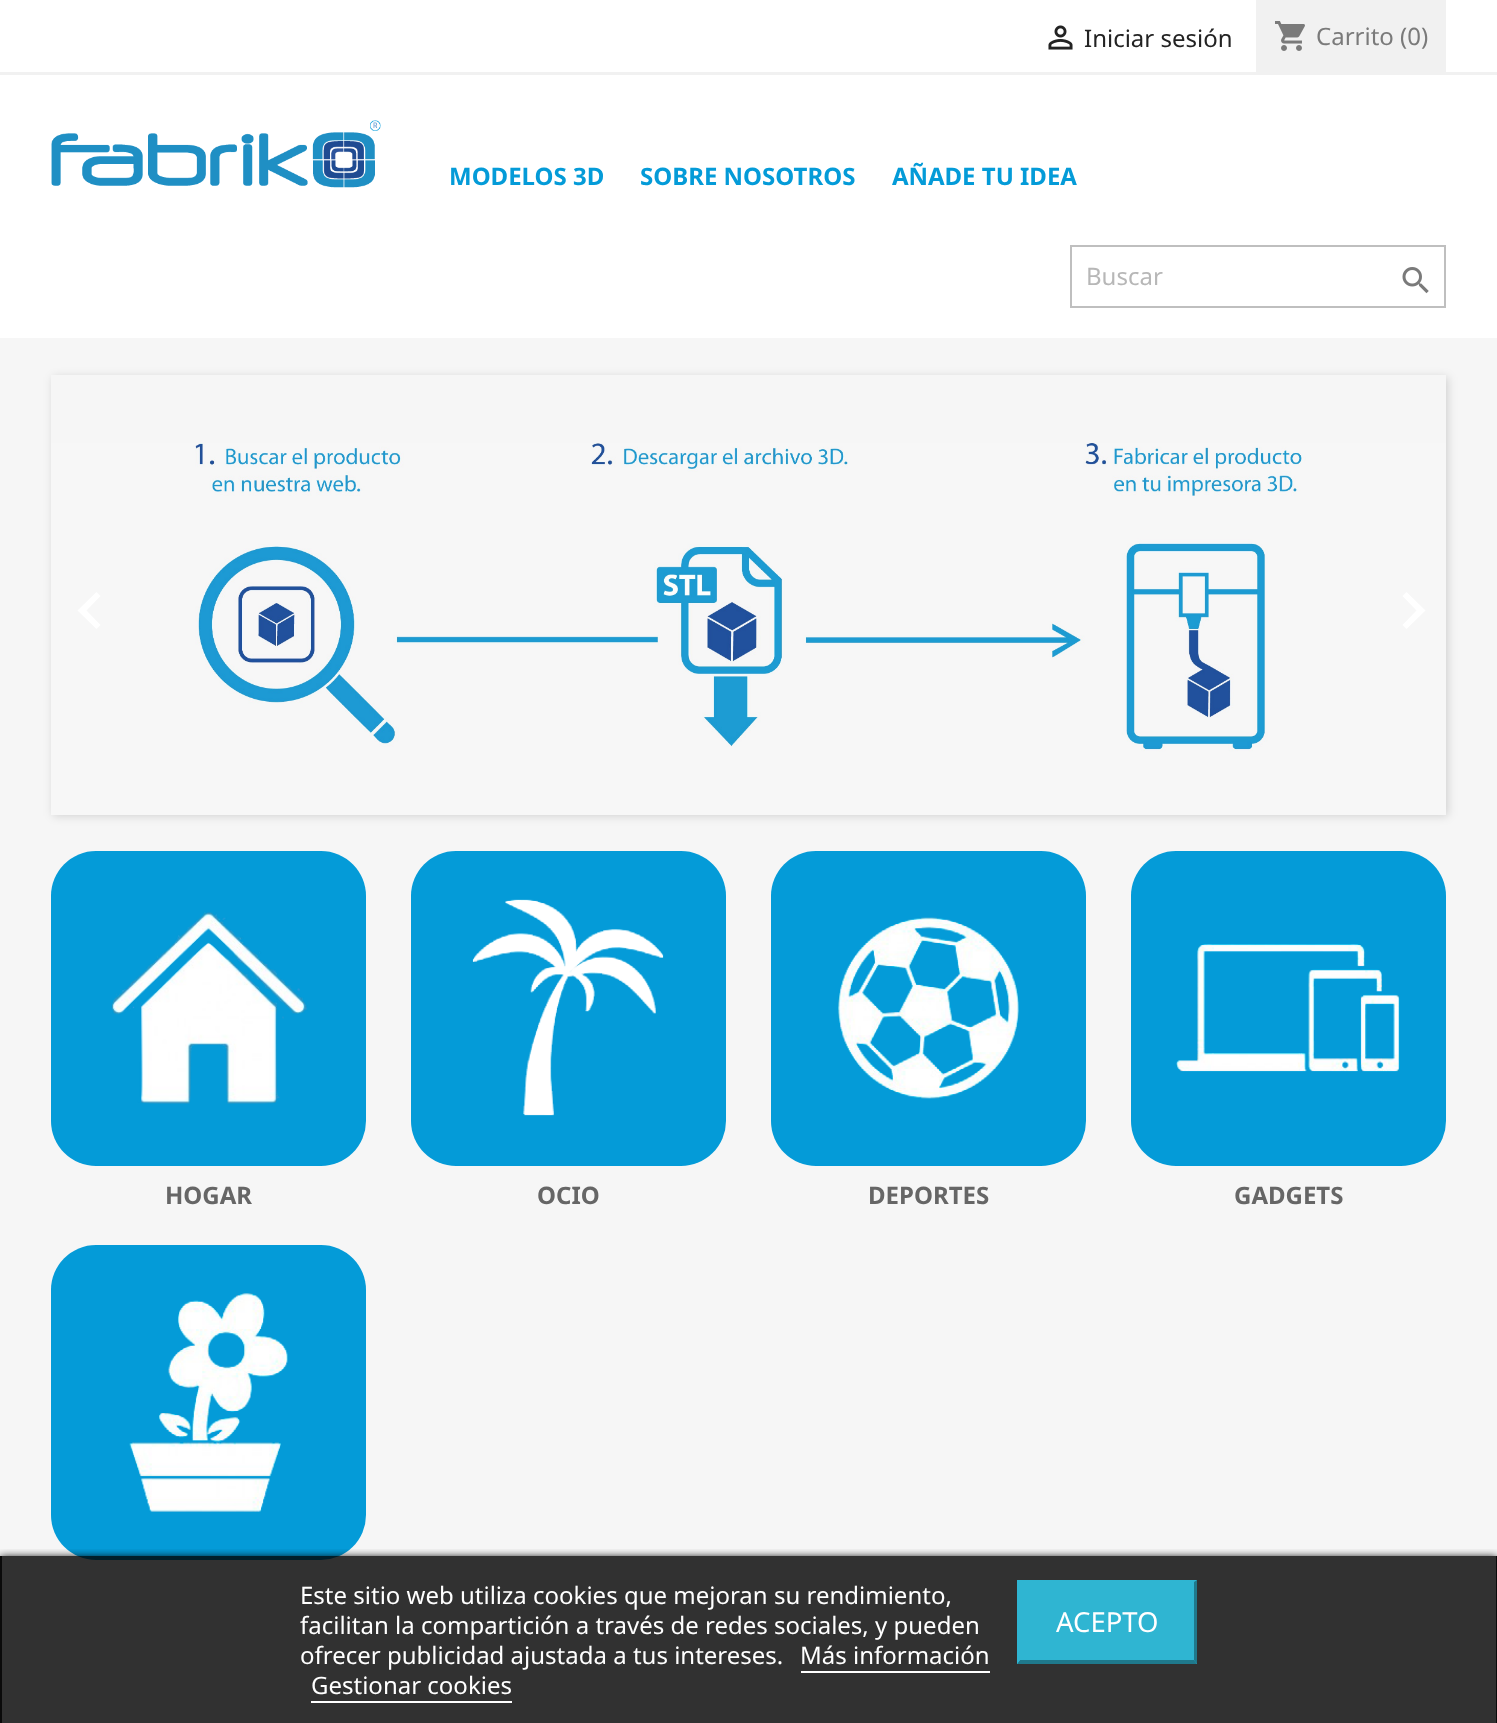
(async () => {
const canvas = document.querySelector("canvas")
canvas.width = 1497
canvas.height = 1723
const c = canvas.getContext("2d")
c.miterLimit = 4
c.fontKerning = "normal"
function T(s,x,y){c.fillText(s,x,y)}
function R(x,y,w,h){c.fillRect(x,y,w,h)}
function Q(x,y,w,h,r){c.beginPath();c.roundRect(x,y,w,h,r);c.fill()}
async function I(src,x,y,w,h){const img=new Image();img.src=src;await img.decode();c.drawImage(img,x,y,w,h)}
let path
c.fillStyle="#fff"
R(0,0,1497,1723)
c.fillStyle="#f1f1f1"
R(0,72,1497,3)
await I("1.png",1048,25,25,25)
c.font="24px Noto Sans"
c.fillStyle="#232323"
T("Iniciar sesión",1084,47)
c.fillStyle="#f1f1f1"
R(1256,0,190,72)
await I("2.png",1275,21,30,30)
c.fillStyle="#7a7a7a"
T("Carrito (0)",1316,45)
await I("3.png",51,120,330,68)
c.font="bold 24px Noto Sans"
c.fillStyle="#049bd8"
T("MODELOS 3D",449,185)
T("SOBRE NOSOTROS",640,185)
T("AÑADE TU IDEA",892,185)
c.strokeStyle="#bfbfbf"
c.lineWidth=2
c.strokeRect(1071,246,374,61)
c.font="24px Noto Sans"
c.fillStyle="#b7b7b7"
T("Buscar",1086,285)
await I("4.png",1402,267,27,27)
c.fillStyle="#f6f6f6"
R(0,338,1497,1385)
c.save()
path = new Path2D("M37 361h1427v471h-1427zm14 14h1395v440h-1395z")
c.clip(path,"evenodd")
c.fillStyle="#00000026"
c.filter="blur(5px)"
c.beginPath()
c.rect(53,377,1395,439)
c.fill()
c.filter="none"
c.restore()
await I("5.png",51,443,1395,372)
c.fillStyle="#fff"
path = new Path2D("M100.5 596l-14 14.5l14 14.5l-4 4l-19-18.5l19-18.5z")
c.fill(path)
path = new Path2D("M1406.5 592l19 18.5l-19 18.5l-4-4l14-14.5l-14-14.5z")
c.fill(path)
c.fillStyle="#049bd8"
Q(51,851,315,315,45)
await I("6.png",112,912,196,192)
c.font="bold 24px Noto Sans"
c.fillStyle="#666"
T("HOGAR",165,1204)
c.fillStyle="#049bd8"
Q(411,851,315,315,45)
await I("7.png",472,899,192,217)
c.fillStyle="#666"
T("OCIO",537,1204)
c.fillStyle="#049bd8"
Q(771,851,315,315,45)
await I("8.png",838,917,181,182)
c.fillStyle="#666"
T("DEPORTES",868,1204)
c.fillStyle="#049bd8"
Q(1131,851,315,315,45)
await I("9.png",1176,944,224,128)
c.fillStyle="#666"
T("GADGETS",1234,1204)
c.fillStyle="#049bd8"
Q(51,1245,315,315,45)
await I("10.png",129,1293,159,219)
c.save()
c.beginPath()
c.rect(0,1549,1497,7)
c.clip()
c.fillStyle="#000"
c.filter="blur(4px)"
c.beginPath()
c.rect(0,1557,1497,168)
c.fill()
c.filter="none"
c.restore()
c.fillStyle="#000000cc"
R(2,1556,1494,167)
c.fillStyle="#0a0a0a"
R(1496,1556,1,167)
R(0,1556,2,167)
c.font="24px Noto Sans"
c.fillStyle="#fff"
T("Este sitio web utiliza cookies que mejoran su rendimiento,",300,1604)
T("facilitan la compartición a través de redes sociales, y pueden",300,1634)
T("ofrecer publicidad ajustada a tus intereses.",300,1664)
T("Más información",800,1664)
R(801,1671,189,2)
T("Gestionar cookies",311,1694)
R(311,1701,201,2)
c.fillStyle="#2fb5d2"
R(1017,1580,180,84)
c.fillStyle="#1f798c"
path = new Path2D("M1197 1580v84l-3-4v-78z")
c.fill(path)
path = new Path2D("M1197 1664h-180l3-4h174z")
c.fill(path)
c.fillStyle="#2fb5d2"
path = new Path2D("M1017 1664v-84l3 2v78z")
c.fill(path)
c.font="27.5px Noto Sans"
c.fillStyle="#fff"
T("ACEPTO",1056,1632)
})()
